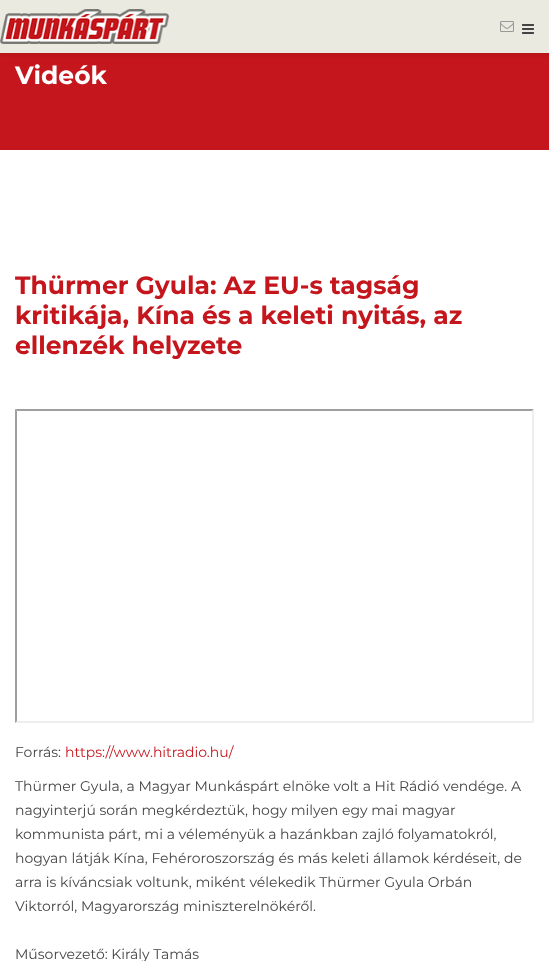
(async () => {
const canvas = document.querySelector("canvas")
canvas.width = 549
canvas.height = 961
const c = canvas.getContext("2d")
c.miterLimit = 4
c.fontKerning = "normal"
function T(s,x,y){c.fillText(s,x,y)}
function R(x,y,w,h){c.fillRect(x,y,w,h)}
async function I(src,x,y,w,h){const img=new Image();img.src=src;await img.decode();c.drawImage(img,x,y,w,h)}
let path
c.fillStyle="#fff"
R(0,0,549,961)
c.fillStyle="#c4161c"
R(0,53,549,97)
c.fillStyle="#0000000d"
c.filter="blur(1.5px)"
c.beginPath()
c.rect(0,3,549,53)
c.fill()
c.filter="none"
c.fillStyle="#eaeae0"
R(0,0,549,53)
await I("1.png",0,9,169,35)
await I("2.png",500,21,14,11)
await I("3.png",522,24,12,10)
c.font="bold 25px Montserrat"
c.fillStyle="#fff"
T("Videók",15,84)
c.fillStyle="#c4161c"
T("Thürmer Gyula: Az EU-s tagság",15,294)
T("kritikája, Kína és a keleti nyitás, az",15,324)
T("ellenzék helyzete",15,354)
c.fillStyle="#9f9f9f"
path = new Path2D("M15 409h519l-2 2h-515z")
c.fill(path)
c.fillStyle="#eee"
path = new Path2D("M534 409v314l-2-2v-310z")
c.fill(path)
path = new Path2D("M534 723h-519l2-2h515z")
c.fill(path)
c.fillStyle="#9f9f9f"
path = new Path2D("M15 723v-314l2 2v310z")
c.fill(path)
c.font="14px Montserrat"
c.fillStyle="#444"
T("Forrás:",15,757)
c.fillStyle="#c4161c"
T("https://www.hitradio.hu/",65,757)
c.fillStyle="#444"
T("Thürmer Gyula, a Magyar Munkáspárt elnöke volt a Hit Rádió vendége. A",15,791)
T("nagyinterjú során megkérdeztük, hogy milyen egy mai magyar",15,815)
T("kommunista párt, mi a véleményük a hazánkban zajló folyamatokról,",15,839)
T("hogyan látják Kína, Fehéroroszország és más keleti államok kérdéseit, de",15,863)
T("arra is kíváncsiak voltunk, miként vélekedik Thürmer Gyula Orbán",15,887)
T("Viktorról, Magyarország miniszterelnökéről.",15,911)
T("Műsorvezető: Király Tamás",15,959)
})()
